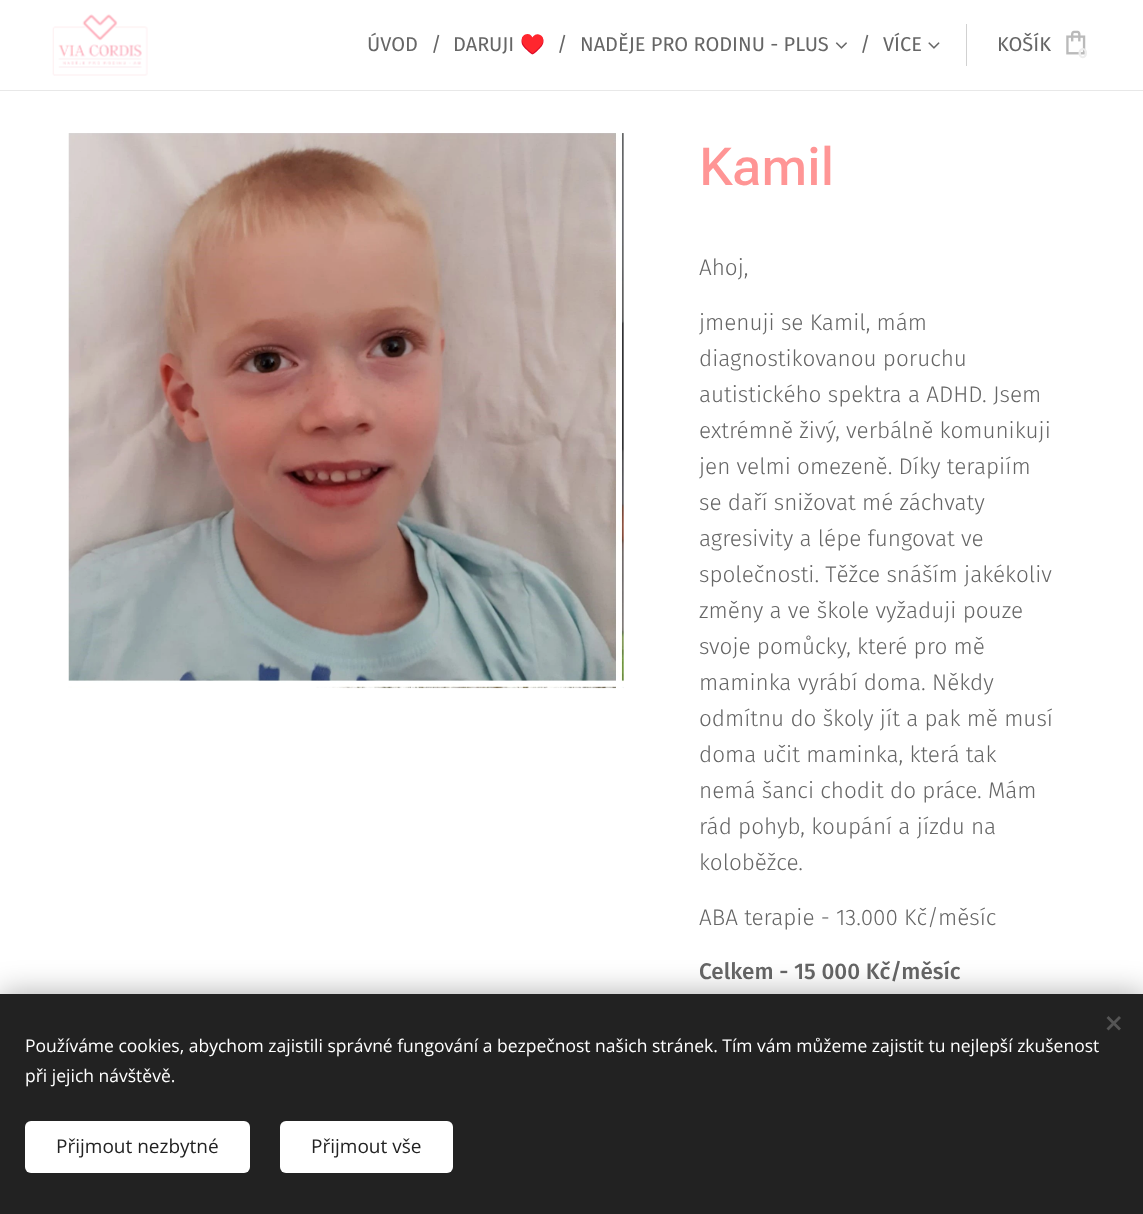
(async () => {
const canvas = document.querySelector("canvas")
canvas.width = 1143
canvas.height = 1214
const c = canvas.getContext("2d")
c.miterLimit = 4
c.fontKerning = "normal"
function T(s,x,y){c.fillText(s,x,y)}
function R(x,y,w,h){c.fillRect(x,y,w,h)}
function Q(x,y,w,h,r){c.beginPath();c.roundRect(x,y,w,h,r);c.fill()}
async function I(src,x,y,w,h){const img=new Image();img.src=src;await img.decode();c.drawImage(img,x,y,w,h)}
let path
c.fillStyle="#fff"
R(0,0,1143,1214)
c.fillStyle="#e8e8e8"
R(0,90,1143,1)
await I("1.png",52,14,96,62)
c.font="20px Fira Sans"
c.fillStyle="#666"
T("ÚVOD",367,51)
T("/",431,51)
T("DARUJI",453,51)
c.font="20px Noto Color Emoji"
T("♥",520,51)
c.font="20px Fira Sans"
T("/",557,51)
T("NADĚJE PRO RODINU - PLUS",580,51)
T("/",860,51)
await I("2.png",835,42,12,7)
T("VÍCE",883,51)
await I("3.png",928,42,12,7)
c.fillStyle="#d1d1d1"
R(966,24,1,42)
c.fillStyle="#666"
T("KOŠÍK",997,51)
await I("4.png",1066,30,20,25)
c.font="bold 14px Montserrat"
c.fillStyle="#ededed"
T("0",1078,58)
await I("5.png",68,133,556,556)
c.font="500 52.5px Roboto Flex"
c.fillStyle="#ff9595"
T("Kamil",699,185)
c.font="300 22.5px Fira Sans"
c.fillStyle="#666"
T("Ahoj,",699,275)
T("jmenuji se Kamil, mám",699,330)
T("diagnostikovanou poruchu",699,366)
T("autistického spektra a ADHD. Jsem",699,402)
T("extrémně živý, verbálně komunikuji",699,438)
T("jen velmi omezeně. Díky terapiím",699,474)
T("se daří snižovat mé záchvaty",699,510)
T("agresivity a lépe fungovat ve",699,546)
T("společnosti. Těžce snáším jakékoliv",699,582)
T("změny a ve škole vyžaduji pouze",699,618)
T("svoje pomůcky, které pro mě",699,654)
T("maminka vyrábí doma. Někdy",699,690)
T("odmítnu do školy jít a pak mě musí",699,726)
T("doma učit maminka, která tak",699,762)
T("nemá šanci chodit do práce. Mám",699,798)
T("rád pohyb, koupání a jízdu na",699,834)
T("koloběžce.",699,870)
T("ABA terapie - 13.000 Kč/měsíc",699,925)
c.font="500 22.5px Fira Sans"
T("Celkem - 15 000 Kč/měsíc",699,979)
c.fillStyle="#00000054"
c.filter="blur(15.5px)"
c.beginPath()
c.rect(0,994,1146,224)
c.fill()
c.filter="none"
c.fillStyle="#222"
R(0,994,1143,220)
c.fillStyle="#555"
path = new Path2D("M1106.5 1028.5l12.5-12.5l2 2l-12.5 12.5z")
c.fill(path)
path = new Path2D("M1108.5 1016l12.5 12.5l-2 2l-12.5-12.5z")
c.fill(path)
c.font="17.5px Open Sans"
c.fillStyle="#fff"
T("Používáme cookies, abychom zajistili správné fungování a bezpečnost našich stránek. Tím vám můžeme zajistit tu nejlepší zkušenost",25,1052)
T("při jejich návštěvě.",25,1082)
Q(25,1121,225,52,6)
c.font="19px Open Sans"
c.fillStyle="#222"
T("Přijmout nezbytné",56,1153)
c.fillStyle="#fff"
Q(280,1121,173,52,6)
c.fillStyle="#222"
T("Přijmout vše",311,1153)
})()
